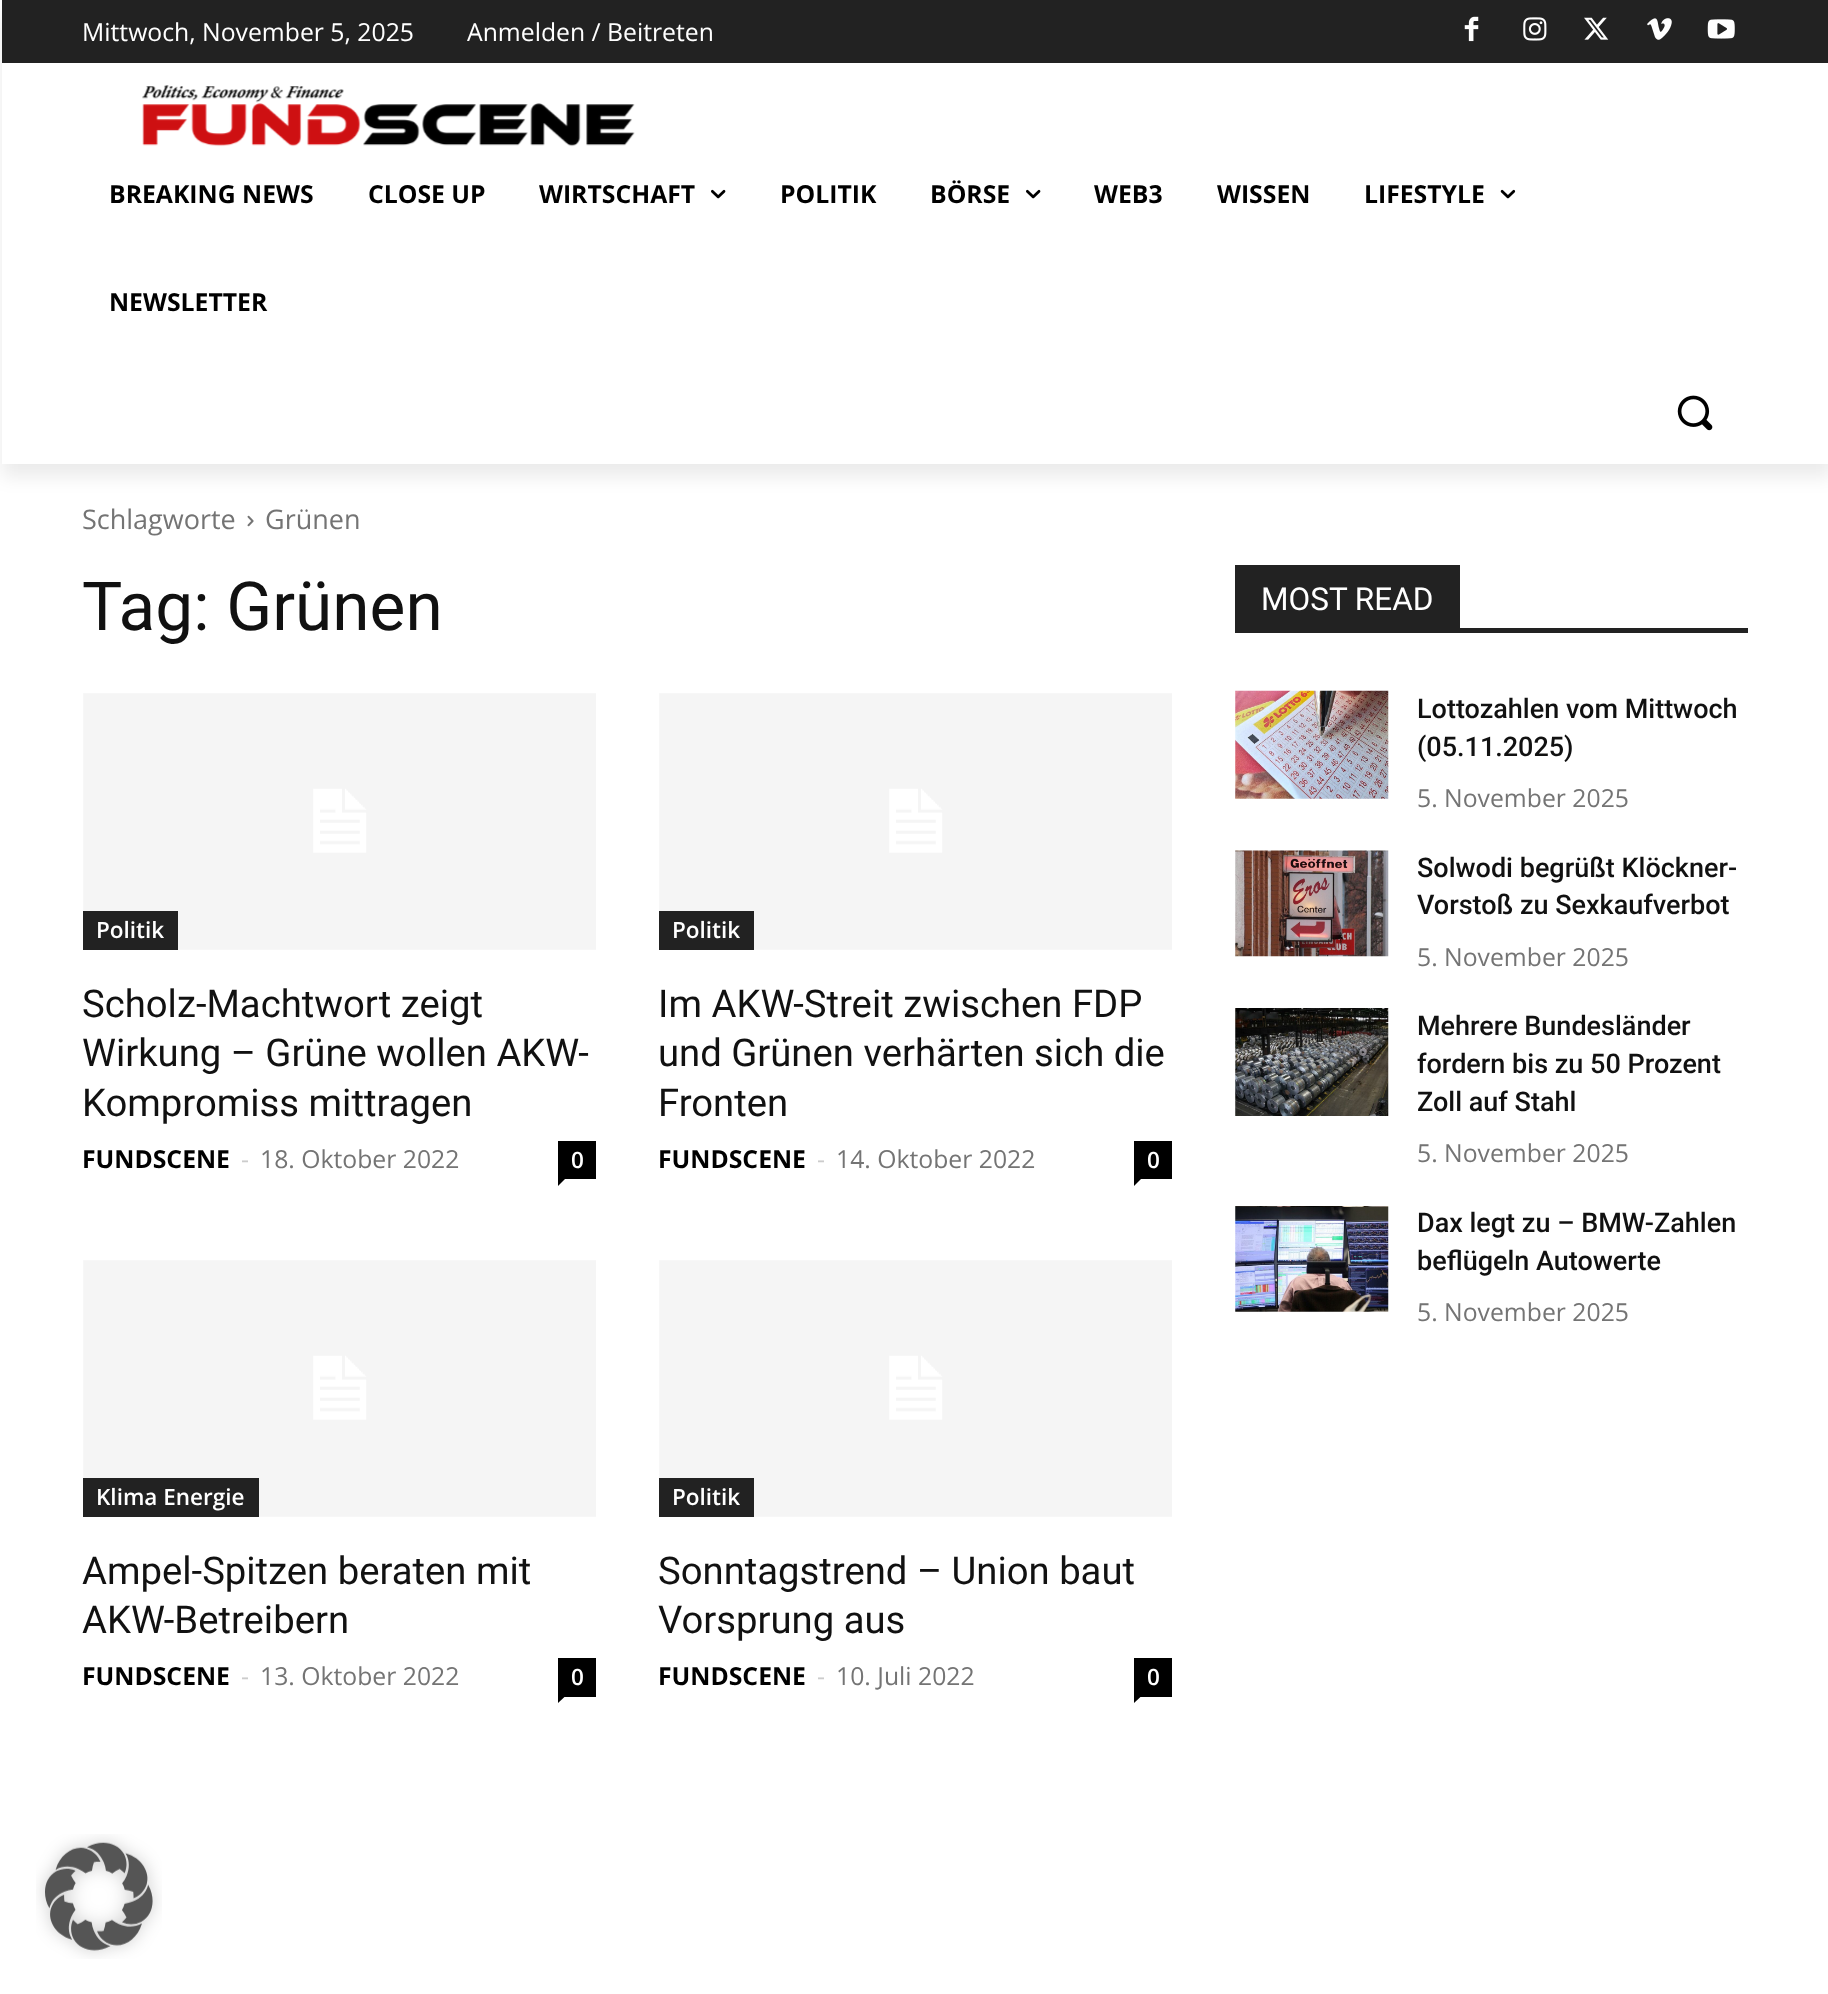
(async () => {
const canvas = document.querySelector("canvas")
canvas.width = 1828
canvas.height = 1994
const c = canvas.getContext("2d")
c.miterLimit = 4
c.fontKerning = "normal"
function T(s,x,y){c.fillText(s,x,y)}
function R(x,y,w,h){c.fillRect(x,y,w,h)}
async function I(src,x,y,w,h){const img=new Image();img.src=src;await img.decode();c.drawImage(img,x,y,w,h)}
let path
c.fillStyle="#fff"
R(0,0,1828,1994)
c.fillStyle="#222"
R(2,0,1826,63)
await I("1.png",1464,16,15,26)
await I("2.png",1523,17,24,24)
await I("3.png",1584,17,25,23)
await I("4.png",1647,18,25,22)
await I("5.png",1707,19,28,20)
await I("6.png",142,85,493,62)
c.save()
path = new Path2D("M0 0h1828v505h-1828zm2 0h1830v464h-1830z")
c.clip(path,"evenodd")
c.fillStyle="#00000014"
c.filter="blur(9px)"
c.beginPath()
c.rect(2,14,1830,463)
c.fill()
c.filter="none"
c.restore()
c.font="24.75px Open Sans"
c.fillStyle="#fff"
T("Mittwoch, November 5, 2025",82,41)
T("Anmelden / Beitreten",467,41)
c.font="bold 24.75px Open Sans"
c.fillStyle="#000"
T("BREAKING NEWS",109,203)
T("CLOSE UP",368,203)
T("WIRTSCHAFT",539,203)
await I("7.png",711,189,15,10)
T("POLITIK",780,203)
T("BÖRSE",930,203)
await I("7.png",1026,189,15,10)
T("WEB3",1094,203)
T("WISSEN",1217,203)
T("LIFESTYLE",1364,203)
await I("8.png",1500,189,16,10)
T("NEWSLETTER",109,311)
await I("9.png",1677,395,36,36)
c.font="27px Open Sans"
c.fillStyle="#747474"
T("Schlagworte",82,529)
await I("10.png",247,515,7,12)
T("Grünen",265,529)
c.font="67.5px Roboto"
c.fillStyle="#111"
T("Tag: Grünen",82,630)
await I("11.png",83,693,513,257)
c.fillStyle="#222"
R(83,911,95,39)
c.font="600 22.5px Open Sans"
c.fillStyle="#fff"
T("Politik",96,938)
c.font="38.25px Roboto"
c.fillStyle="#111"
T("Scholz-Machtwort zeigt",82,1017)
T("Wirkung – Grüne wollen AKW-",82,1066)
T("Kompromiss mittragen",82,1116)
c.font="bold 24.75px Open Sans"
c.fillStyle="#000"
T("FUNDSCENE",82,1168)
c.font="24.75px Open Sans"
c.fillStyle="#ccc"
T("-",241,1168)
c.fillStyle="#747474"
T("18. Oktober 2022",260,1168)
c.fillStyle="#000"
R(558,1141,38,38)
c.font="600 22.5px Open Sans"
c.fillStyle="#fff"
T("0",571,1168)
c.fillStyle="#000"
path = new Path2D("M558 1179h7l-7 7z")
c.fill(path)
await I("11.png",659,693,513,257)
c.fillStyle="#222"
R(659,911,95,39)
c.fillStyle="#fff"
T("Politik",672,938)
c.font="38.25px Roboto"
c.fillStyle="#111"
T("Im AKW-Streit zwischen FDP",658,1017)
T("und Grünen verhärten sich die",658,1066)
T("Fronten",658,1116)
c.font="bold 24.75px Open Sans"
c.fillStyle="#000"
T("FUNDSCENE",658,1168)
c.font="24.75px Open Sans"
c.fillStyle="#ccc"
T("-",817,1168)
c.fillStyle="#747474"
T("14. Oktober 2022",836,1168)
c.fillStyle="#000"
R(1134,1141,38,38)
c.font="600 22.5px Open Sans"
c.fillStyle="#fff"
T("0",1147,1168)
c.fillStyle="#000"
path = new Path2D("M1134 1179h7l-7 7z")
c.fill(path)
await I("11.png",83,1260,513,257)
c.fillStyle="#222"
R(83,1478,176,39)
c.fillStyle="#fff"
T("Klima Energie",96,1505)
c.font="38.25px Roboto"
c.fillStyle="#111"
T("Ampel-Spitzen beraten mit",82,1584)
T("AKW-Betreibern",82,1633)
c.font="bold 24.75px Open Sans"
c.fillStyle="#000"
T("FUNDSCENE",82,1685)
c.font="24.75px Open Sans"
c.fillStyle="#ccc"
T("-",241,1685)
c.fillStyle="#747474"
T("13. Oktober 2022",260,1685)
c.fillStyle="#000"
R(558,1658,38,39)
c.font="600 22.5px Open Sans"
c.fillStyle="#fff"
T("0",571,1685)
c.fillStyle="#000"
path = new Path2D("M558 1696.5h7l-7 6.5z")
c.fill(path)
await I("11.png",659,1260,513,257)
c.fillStyle="#222"
R(659,1478,95,39)
c.fillStyle="#fff"
T("Politik",672,1505)
c.font="38.25px Roboto"
c.fillStyle="#111"
T("Sonntagstrend – Union baut",658,1584)
T("Vorsprung aus",658,1633)
c.font="bold 24.75px Open Sans"
c.fillStyle="#000"
T("FUNDSCENE",658,1685)
c.font="24.75px Open Sans"
c.fillStyle="#ccc"
T("-",817,1685)
c.fillStyle="#747474"
T("10. Juli 2022",836,1685)
c.fillStyle="#000"
R(1134,1658,38,39)
c.font="600 22.5px Open Sans"
c.fillStyle="#fff"
T("0",1147,1685)
c.fillStyle="#000"
path = new Path2D("M1134 1696.5h7l-7 6.5z")
c.fill(path)
c.fillStyle="#222"
R(1235,628,513,5)
R(1235,565,225,63)
c.font="31.5px Roboto"
c.fillStyle="#fff"
T("MOST READ",1261,610)
await I("12.png",1235,690,154,109)
c.font="500 27px Roboto"
c.fillStyle="#111"
T("Lottozahlen vom Mittwoch",1417,718)
T("(05.11.2025)",1417,756)
c.font="24.75px Open Sans"
c.fillStyle="#747474"
T("5. November 2025",1417,807)
await I("13.png",1235,850,154,107)
c.font="500 27px Roboto"
c.fillStyle="#111"
T("Solwodi begrüßt Klöckner-",1417,877)
T("Vorstoß zu Sexkaufverbot",1417,914)
c.font="24.75px Open Sans"
c.fillStyle="#747474"
T("5. November 2025",1417,966)
await I("14.png",1235,1008,154,108)
c.font="500 27px Roboto"
c.fillStyle="#111"
T("Mehrere Bundesländer",1417,1035)
T("fordern bis zu 50 Prozent",1417,1073)
T("Zoll auf Stahl",1417,1111)
c.font="24.75px Open Sans"
c.fillStyle="#747474"
T("5. November 2025",1417,1162)
await I("15.png",1235,1206,154,106)
c.font="500 27px Roboto"
c.fillStyle="#111"
T("Dax legt zu – BMW-Zahlen",1417,1232)
T("beflügeln Autowerte",1417,1270)
c.font="24.75px Open Sans"
c.fillStyle="#747474"
T("5. November 2025",1417,1321)
await I("16.png",36,1834,126,125)
})()
